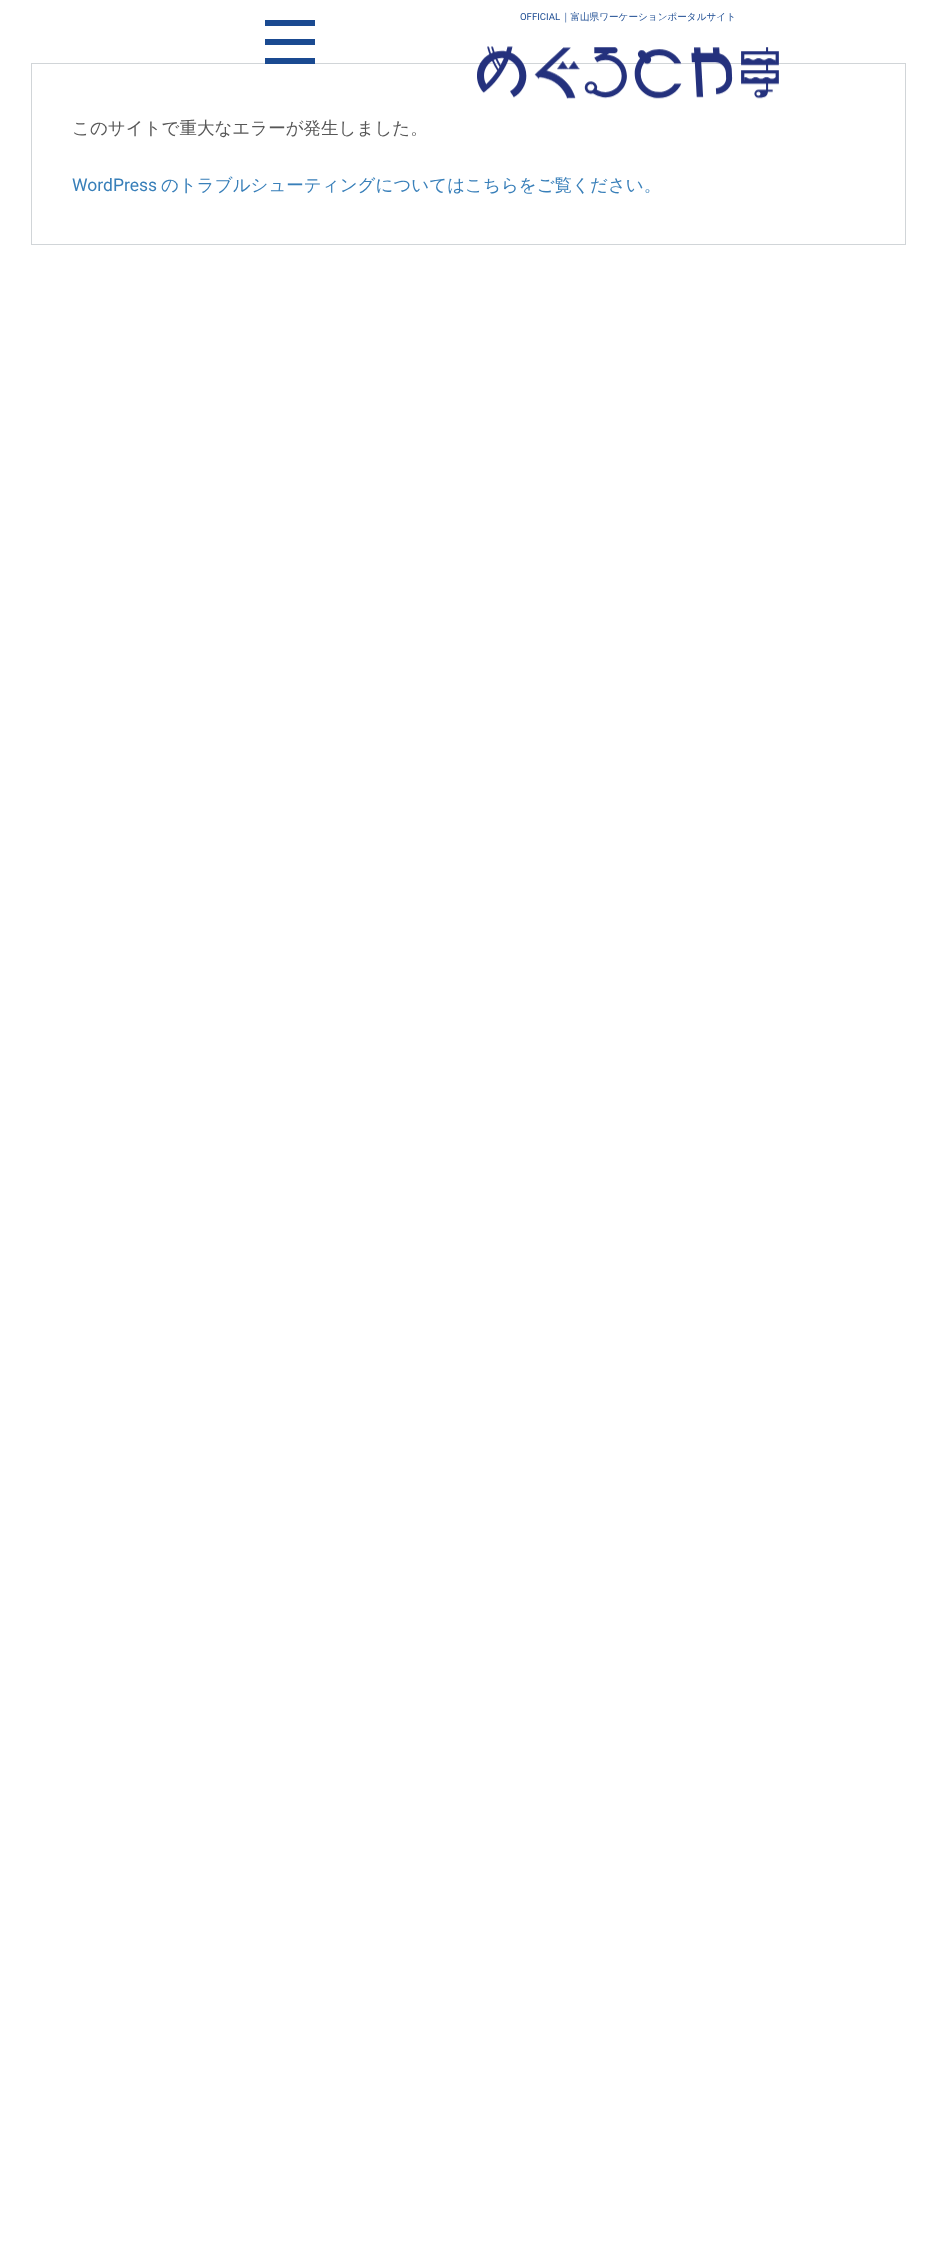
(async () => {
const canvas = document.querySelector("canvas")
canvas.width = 936
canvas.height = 2241
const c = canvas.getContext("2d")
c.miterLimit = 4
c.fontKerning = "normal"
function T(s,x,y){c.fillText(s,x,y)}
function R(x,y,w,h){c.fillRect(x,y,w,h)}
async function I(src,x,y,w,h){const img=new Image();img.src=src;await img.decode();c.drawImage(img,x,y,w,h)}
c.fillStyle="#fff"
R(0,0,936,2241)
c.strokeStyle="#d1d5d8"
c.strokeRect(31.5,63.5,874,181)
c.font="9.6px Roboto"
c.fillStyle="#1a4a91"
T("OFFICIAL",520,20)
c.font="500 9.6px WenQuanYi Zen Hei"
T("｜富山県ワーケーションポータルサイト",561,20)
await I("1.png",477,46,302,53)
R(265,20,50,6)
R(265,39,50,6)
R(265,58,50,6)
c.font="500 17.5px WenQuanYi Zen Hei"
c.fillStyle="#575757"
T("このサイトで重大なエラーが発生しました。",72,134)
c.font="17.5px Roboto"
c.fillStyle="#387fb9"
T("WordPress",72,191)
c.font="500 17.5px WenQuanYi Zen Hei"
T("のトラブルシューティングについてはこちらをご覧ください。",161,191)
})()
